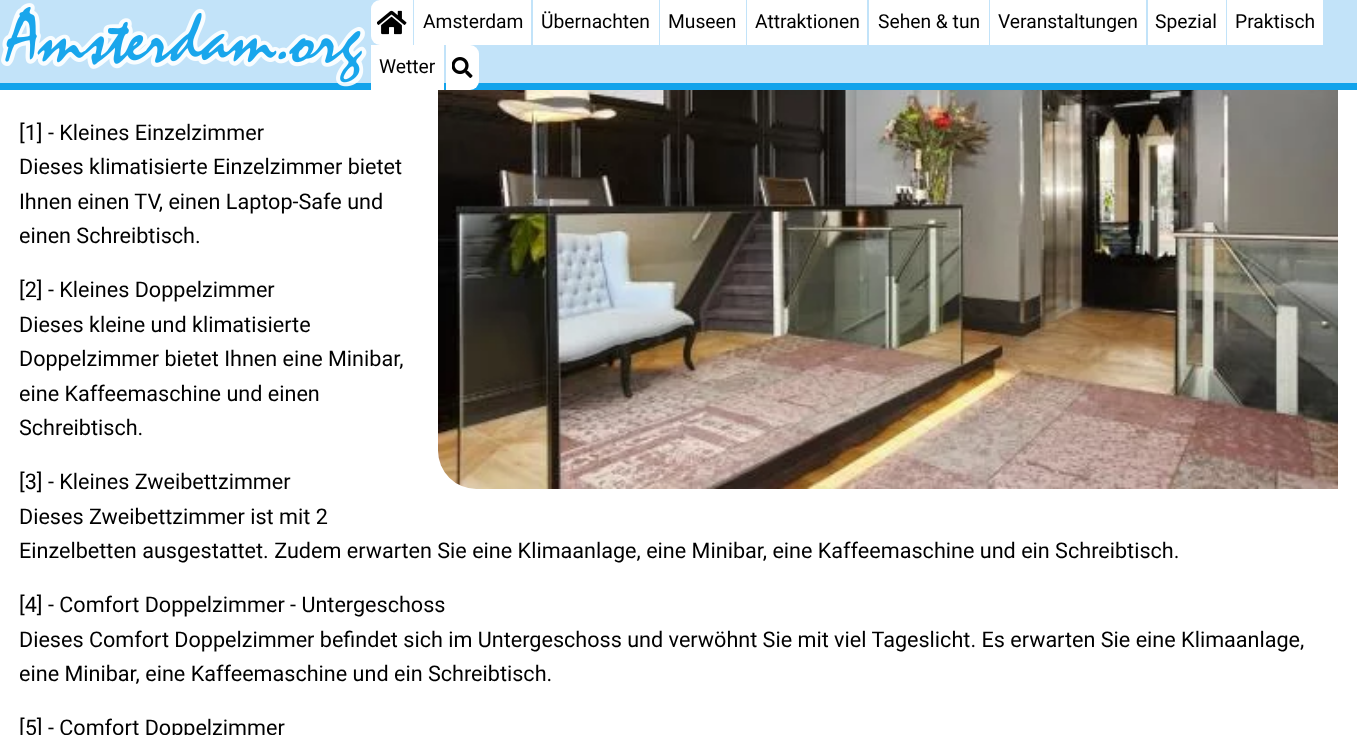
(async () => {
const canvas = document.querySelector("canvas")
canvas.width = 1357
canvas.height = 735
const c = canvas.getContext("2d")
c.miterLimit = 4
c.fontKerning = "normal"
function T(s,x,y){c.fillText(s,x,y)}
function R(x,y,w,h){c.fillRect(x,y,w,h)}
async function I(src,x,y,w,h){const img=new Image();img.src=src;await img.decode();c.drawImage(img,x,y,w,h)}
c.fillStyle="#fff"
R(0,0,1357,735)
c.fillStyle="#c2e3f9"
R(0,0,1357,83)
c.fillStyle="#12a3eb"
R(0,83,1357,7)
await I("1.png",1,3,366,84)
c.fillStyle="#fff"
c.beginPath()
c.roundRect(371,0,42,45,[9,0,0,9])
c.fill()
await I("2.png",377,10,30,25)
R(414,0,117,45)
c.font="19.25px Roboto"
c.fillStyle="#000"
T("Amsterdam",423,28)
c.fillStyle="#fff"
R(533,0,126,45)
c.fillStyle="#000"
T("Übernachten",541,28)
c.fillStyle="#fff"
R(660,0,86,45)
c.fillStyle="#000"
T("Museen",668,28)
c.fillStyle="#fff"
R(747,0,120,45)
c.fillStyle="#000"
T("Attraktionen",755,28)
c.fillStyle="#fff"
R(869,0,120,45)
c.fillStyle="#000"
T("Sehen & tun",878,28)
c.fillStyle="#fff"
R(990,0,156,45)
c.fillStyle="#000"
T("Veranstaltungen",998,28)
c.fillStyle="#fff"
R(1148,0,78,45)
c.fillStyle="#000"
T("Spezial",1155,28)
c.fillStyle="#fff"
R(1227,0,96,45)
c.fillStyle="#000"
T("Praktisch",1235,28)
c.fillStyle="#fff"
R(371,45,73,45)
c.fillStyle="#000"
T("Wetter",379,73)
c.fillStyle="#fff"
c.beginPath()
c.roundRect(446,45,33,45,[0,9,9,0])
c.fill()
await I("3.png",452,57,21,21)
c.font="21.6px Roboto"
c.fillStyle="#000"
T("[1] - Kleines Einzelzimmer",19,140)
T("Dieses klimatisierte Einzelzimmer bietet",19,174)
T("Ihnen einen TV, einen Laptop-Safe und",19,209)
T("einen Schreibtisch.",19,243)
await I("4.png",438,90,900,399)
T("[2] - Kleines Doppelzimmer",19,297)
T("Dieses kleine und klimatisierte",19,332)
T("Doppelzimmer bietet Ihnen eine Minibar,",19,366)
T("eine Kaffeemaschine und einen",19,401)
T("Schreibtisch.",19,435)
T("[3] - Kleines Zweibettzimmer",19,489)
T("Dieses Zweibettzimmer ist mit 2",19,524)
T("Einzelbetten ausgestattet. Zudem erwarten Sie eine Klimaanlage, eine Minibar, eine Kaffeemaschine und ein Schreibtisch.",19,558)
T("[4] - Comfort Doppelzimmer - Untergeschoss",19,612)
T("Dieses Comfort Doppelzimmer befindet sich im Untergeschoss und verwöhnt Sie mit viel Tageslicht. Es erwarten Sie eine Klimaanlage,",19,647)
T("eine Minibar, eine Kaffeemaschine und ein Schreibtisch.",19,681)
T("[5] - Comfort Doppelzimmer",19,735)
})()
